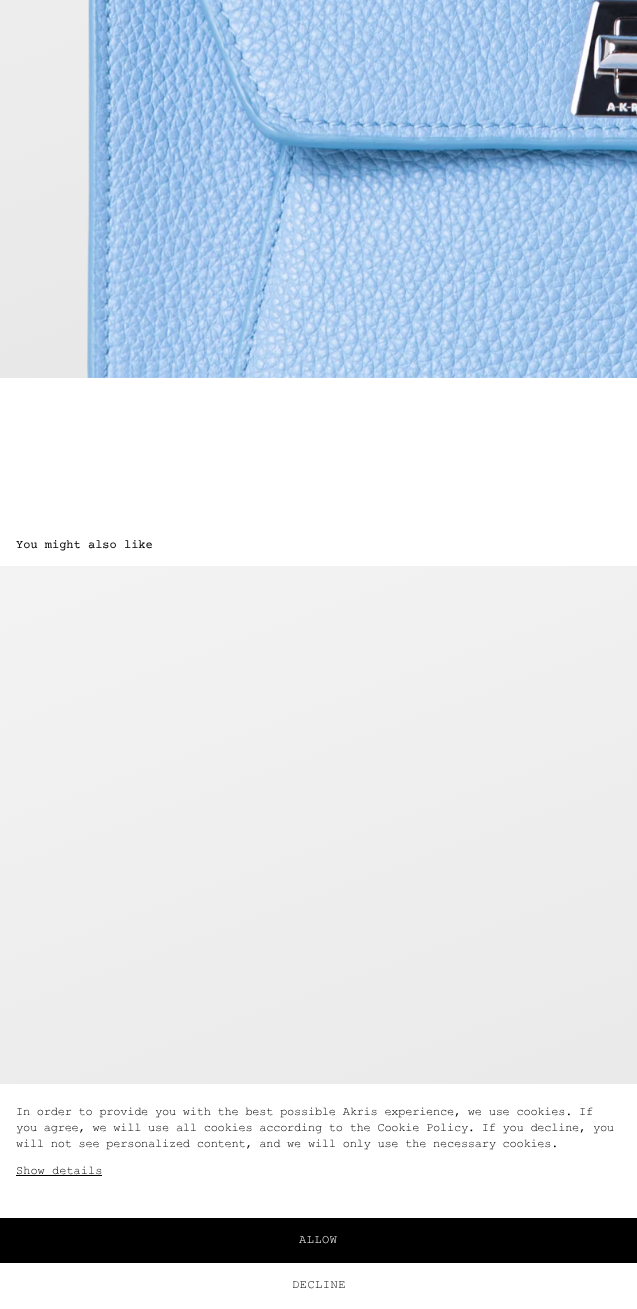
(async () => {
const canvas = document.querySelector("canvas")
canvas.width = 637
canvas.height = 1309
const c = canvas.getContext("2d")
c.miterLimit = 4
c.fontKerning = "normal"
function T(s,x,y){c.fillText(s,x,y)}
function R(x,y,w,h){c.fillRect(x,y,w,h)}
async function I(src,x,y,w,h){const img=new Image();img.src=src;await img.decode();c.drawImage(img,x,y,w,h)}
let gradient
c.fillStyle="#fff"
R(0,0,637,1309)
gradient = c.createLinearGradient(145,-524,492,431)
gradient.addColorStop(.04,"#f3f3f3")
gradient.addColorStop(.95,"#e6e6e6")
c.fillStyle = gradient
R(0,0,637,378)
await I("1.png",87,0,550,378)
c.font="12px Courier Prime"
c.fillStyle="#000"
T("You might also like",16,548)
gradient = c.createLinearGradient(145,513,492,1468)
gradient.addColorStop(.04,"#f3f3f3")
gradient.addColorStop(.95,"#e6e6e6")
c.fillStyle = gradient
R(0,566,637,518)
c.letterSpacing="-0.25px"
c.font="12px Courier New"
c.fillStyle="#000"
T("In order to provide you with the best possible Akris experience, we use cookies. If",16,1115)
T("you agree, we will use all cookies according to the Cookie Policy. If you decline, you",16,1131)
T("will not see personalized content, and we will only use the necessary cookies.",16,1147)
c.letterSpacing="0px"
T("Show details",16,1174)
R(16,1175,86,1)
R(0,1218,637,45)
c.letterSpacing="0.5px"
c.fillStyle="#fff"
T("ALLOW",299,1243)
c.fillStyle="#000"
T("DECLINE",292,1288)
})()
